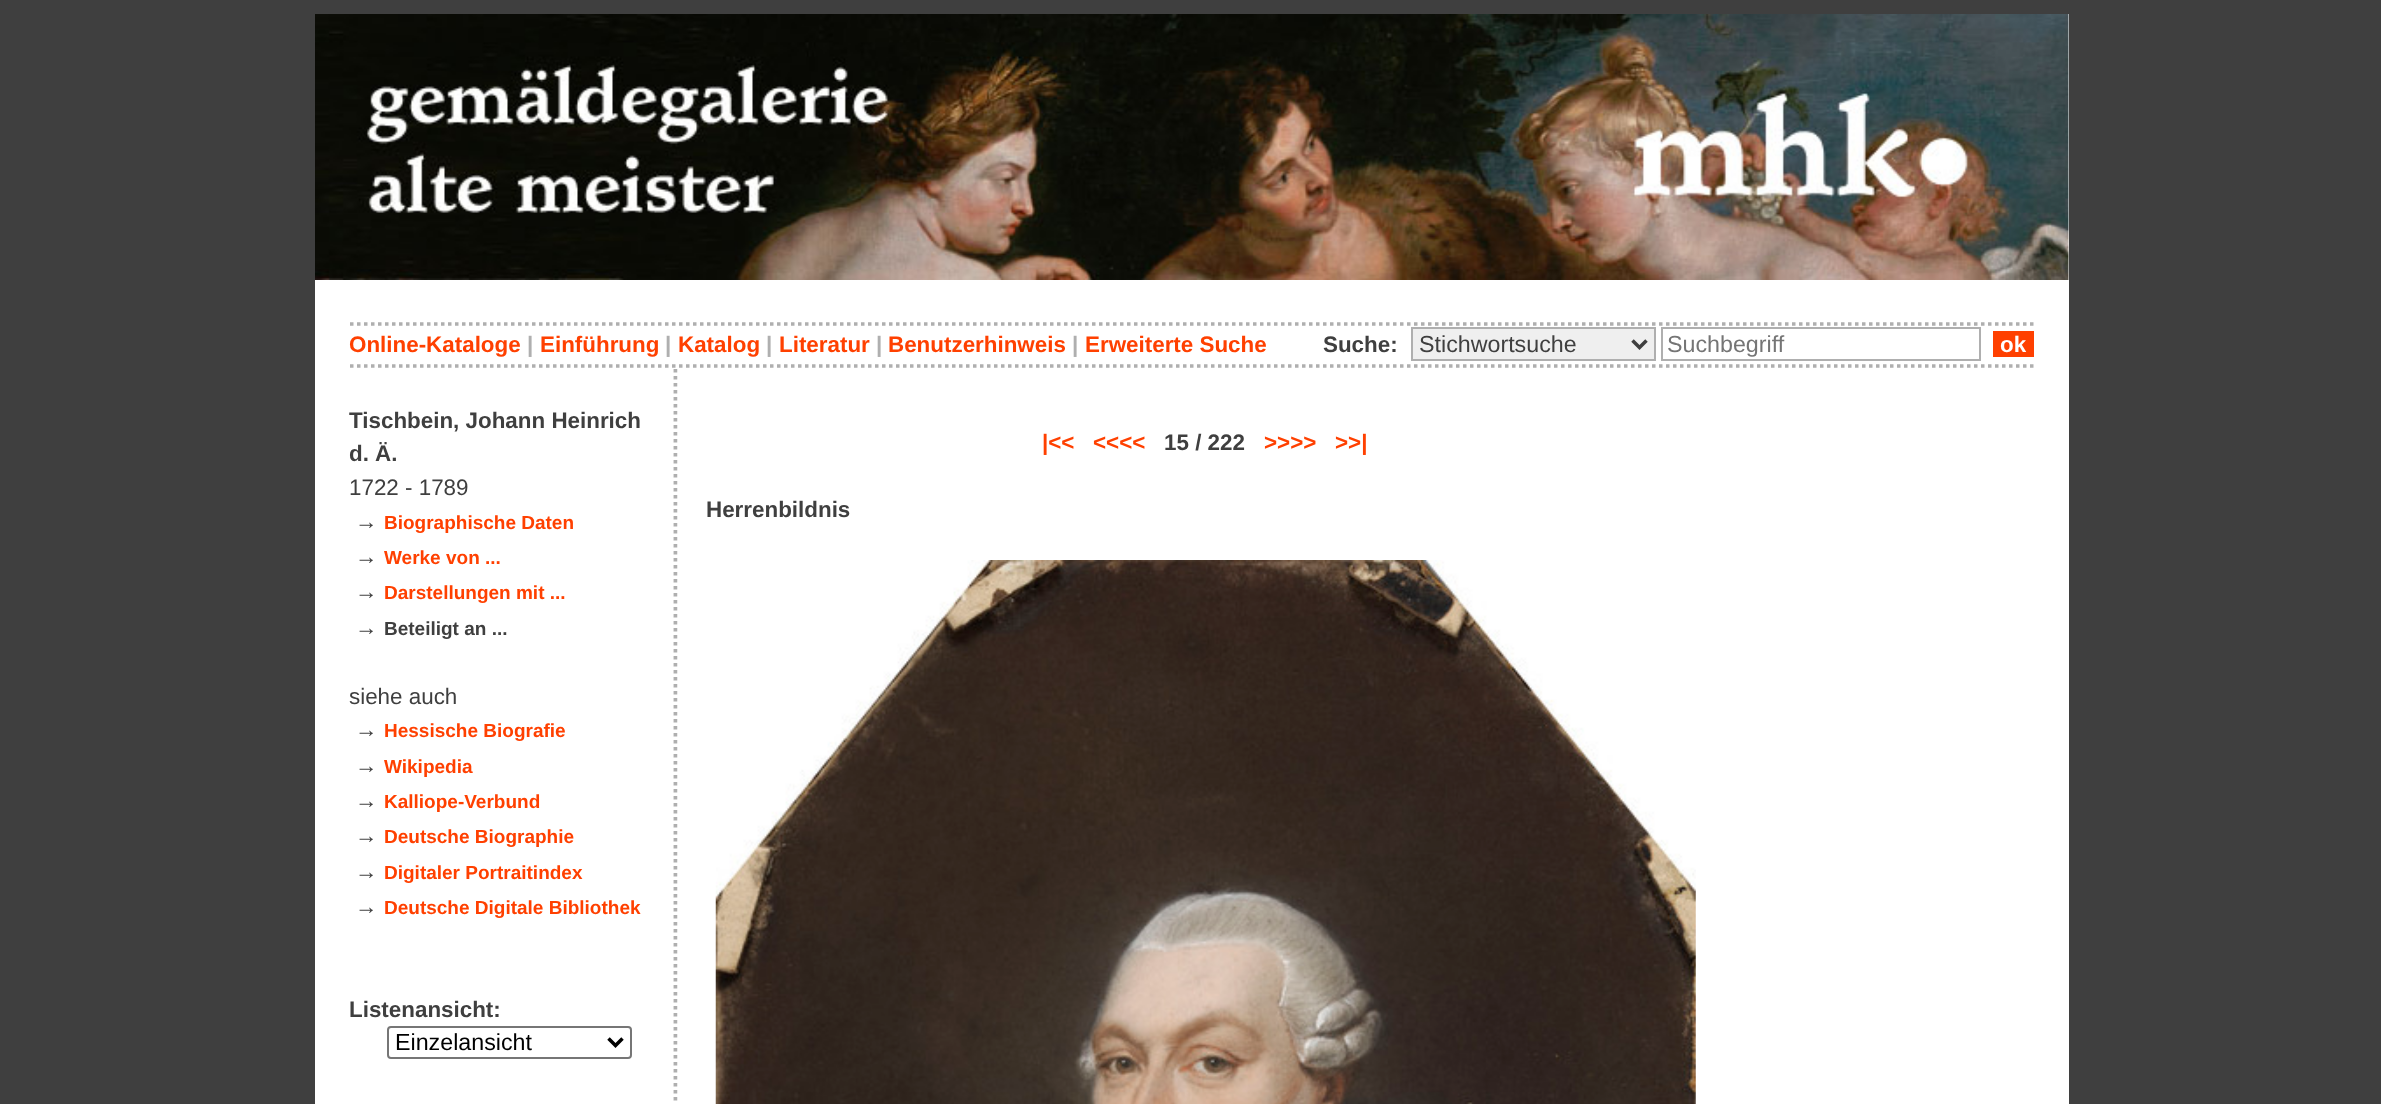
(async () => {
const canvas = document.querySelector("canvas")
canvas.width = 2381
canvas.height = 1104
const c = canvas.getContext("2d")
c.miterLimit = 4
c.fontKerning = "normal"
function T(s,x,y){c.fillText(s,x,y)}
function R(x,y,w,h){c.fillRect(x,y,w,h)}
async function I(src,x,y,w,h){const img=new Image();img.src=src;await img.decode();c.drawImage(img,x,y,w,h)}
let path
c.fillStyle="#3f3f3f"
R(0,0,2381,1104)
c.fillStyle="#fff"
R(315,14,1754,1090)
await I("1.png",315,14,1754,266)
path = new Path2D("M350 324h1683.5")
c.strokeStyle="#afafaf"
c.lineWidth=3.5
c.setLineDash([3.5,3.5])
c.stroke(path)
c.font="bold 22.4px Liberation Sans"
c.fillStyle="#ff4000"
T("Online-Kataloge",349,352)
c.fillStyle="#afafaf"
T("|",527,352)
c.fillStyle="#ff4000"
T("Einführung",540,352)
c.fillStyle="#afafaf"
T("|",665,352)
c.fillStyle="#ff4000"
T("Katalog",678,352)
c.fillStyle="#afafaf"
T("|",766,352)
c.fillStyle="#ff4000"
T("Literatur",779,352)
c.fillStyle="#afafaf"
T("|",876,352)
c.fillStyle="#ff4000"
T("Benutzerhinweis",888,352)
c.fillStyle="#afafaf"
T("|",1072,352)
c.fillStyle="#ff4000"
T("Erweiterte Suche",1085,352)
c.fillStyle="#3f3f3f"
T("Suche:",1323,352)
c.fillStyle="#efefef"
c.beginPath()
c.rect(1412,328,243,32)
c.fill()
c.lineWidth=2
c.setLineDash([])
c.stroke()
path = new Path2D("M1632.5 340.5l7 7l7-7")
c.strokeStyle="#3f3f3f"
c.lineWidth=3.5
c.stroke(path)
c.font="23.25px Liberation Sans"
c.fillStyle="#3f3f3f"
T("Stichwortsuche",1419,352)
c.strokeStyle="#afafaf"
c.lineWidth=2
c.strokeRect(1662,328,318,32)
c.fillStyle="#757575"
T("Suchbegriff",1667,352)
c.fillStyle="#ff4000"
R(1993,331,41,26)
c.font="bold 22.4px Liberation Sans"
c.fillStyle="#fff"
T("ok",2000,352)
path = new Path2D("M350 366h1683.5")
c.lineWidth=3.5
c.setLineDash([3.5,3.5])
c.stroke(path)
path = new Path2D("M675.5 369v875")
c.stroke(path)
c.fillStyle="#3f3f3f"
T("Tischbein, Johann Heinrich",349,428)
T("d. Ä.",349,461)
c.font="22.4px Liberation Sans"
T("1722 - 1789",349,495)
c.font="bold 22.4px Liberation Sans"
T("→",355,529)
c.font="bold 19px Liberation Sans"
c.fillStyle="#ff4000"
T("Biographische Daten",384,529)
c.font="bold 22.4px Liberation Sans"
c.fillStyle="#3f3f3f"
T("→",355,564)
c.font="bold 19px Liberation Sans"
c.fillStyle="#ff4000"
T("Werke von ...",384,564)
c.font="bold 22.4px Liberation Sans"
c.fillStyle="#3f3f3f"
T("→",355,599)
c.font="bold 19px Liberation Sans"
c.fillStyle="#ff4000"
T("Darstellungen mit ...",384,599)
c.font="bold 22.4px Liberation Sans"
c.fillStyle="#3f3f3f"
T("→",355,635)
c.font="bold 19px Liberation Sans"
T("Beteiligt an ...",384,635)
c.font="22.4px Liberation Sans"
T("siehe auch",349,704)
c.font="bold 22.4px Liberation Sans"
T("→",355,737)
c.font="bold 19px Liberation Sans"
c.fillStyle="#ff4000"
T("Hessische Biografie",384,737)
c.font="bold 22.4px Liberation Sans"
c.fillStyle="#3f3f3f"
T("→",355,773)
c.font="bold 19px Liberation Sans"
c.fillStyle="#ff4000"
T("Wikipedia",384,773)
c.font="bold 22.4px Liberation Sans"
c.fillStyle="#3f3f3f"
T("→",355,808)
c.font="bold 19px Liberation Sans"
c.fillStyle="#ff4000"
T("Kalliope-Verbund",384,808)
c.font="bold 22.4px Liberation Sans"
c.fillStyle="#3f3f3f"
T("→",355,843)
c.font="bold 19px Liberation Sans"
c.fillStyle="#ff4000"
T("Deutsche Biographie",384,843)
c.font="bold 22.4px Liberation Sans"
c.fillStyle="#3f3f3f"
T("→",355,879)
c.font="bold 19px Liberation Sans"
c.fillStyle="#ff4000"
T("Digitaler Portraitindex",384,879)
c.font="bold 22.4px Liberation Sans"
c.fillStyle="#3f3f3f"
T("→",355,914)
c.font="bold 19px Liberation Sans"
c.fillStyle="#ff4000"
T("Deutsche Digitale Bibliothek",384,914)
c.font="bold 22.4px Liberation Sans"
c.fillStyle="#3f3f3f"
T("Listenansicht:",349,1017)
c.beginPath()
c.roundRect(388,1027,243,31,3)
c.strokeStyle="#767676"
c.lineWidth=2
c.setLineDash([])
c.stroke()
path = new Path2D("M608.5 1038.5l7 7l7-7")
c.strokeStyle="#000"
c.lineWidth=3.5
c.stroke(path)
c.font="23.25px Liberation Sans"
c.fillStyle="#000"
T("Einzelansicht",395,1050)
c.fillStyle="#fff"
R(674,369,4,732)
path = new Path2D("M675.5 369v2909")
c.strokeStyle="#afafaf"
c.setLineDash([3.5,3.5])
c.stroke(path)
c.font="bold 22.4px Liberation Sans"
c.fillStyle="#ff4000"
T("|<<",1042,450)
T("<<<<",1093,450)
c.fillStyle="#3f3f3f"
T("15 / 222",1164,450)
c.fillStyle="#ff4000"
T(">>>>",1264,450)
T(">>|",1335,450)
c.fillStyle="#3f3f3f"
T("Herrenbildnis",706,517)
await I("2.png",715,560,981,544)
})()
